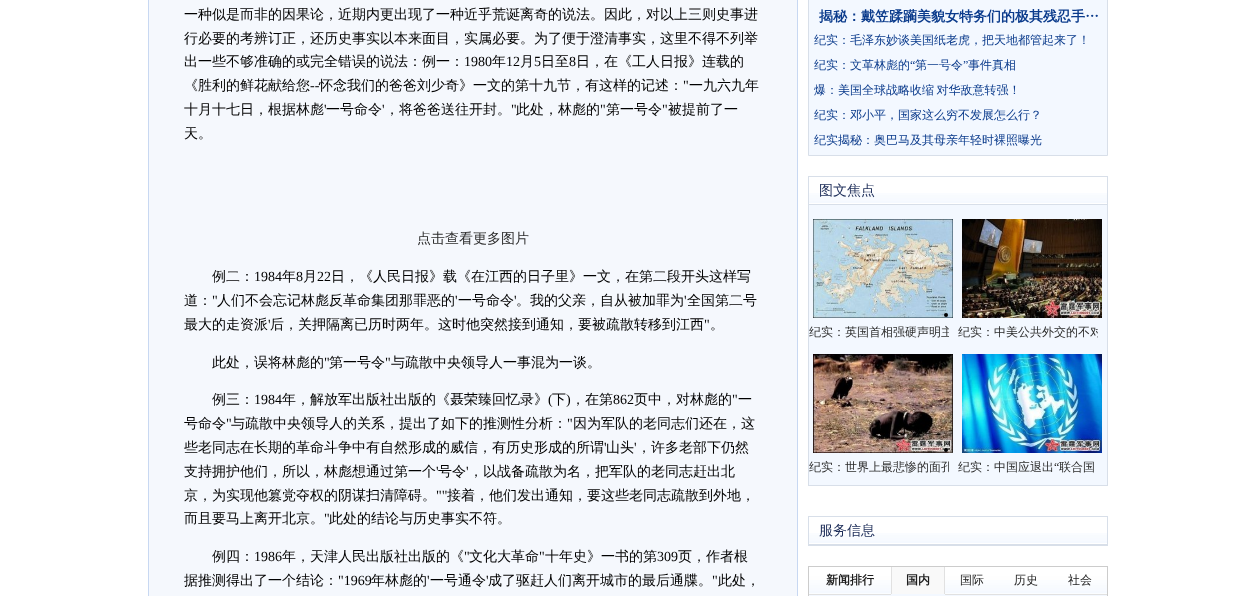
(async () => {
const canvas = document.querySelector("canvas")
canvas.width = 1255
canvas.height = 596
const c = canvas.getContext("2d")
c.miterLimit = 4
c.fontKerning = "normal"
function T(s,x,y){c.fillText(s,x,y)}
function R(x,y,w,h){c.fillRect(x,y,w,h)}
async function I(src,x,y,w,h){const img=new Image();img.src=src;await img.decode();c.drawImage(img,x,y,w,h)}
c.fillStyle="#fff"
R(0,0,1255,596)
c.fillStyle="#f5f8fd"
c.beginPath()
c.rect(148.5,-.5,649,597)
c.fill()
c.strokeStyle="#c8d8f2"
c.stroke()
c.font="500 14px WenQuanYi Zen Hei"
c.fillStyle="#000"
T("一种似是而非的因果论，近期内更出现了一种近乎荒诞离奇的说法。因此，对以上三则史事进",184,19)
T("行必要的考辨订正，还历史事实以本来面目，实属必要。为了便于澄清事实，这里不得不列举",184,43)
T("出一些不够准确的或完全错误的说法：例一：",184,66)
c.font="14px Liberation Serif"
T("1980",464,66)
c.font="500 14px WenQuanYi Zen Hei"
T("年",492,66)
c.font="14px Liberation Serif"
T("12",506,66)
c.font="500 14px WenQuanYi Zen Hei"
T("月",520,66)
c.font="14px Liberation Serif"
T("5",534,66)
c.font="500 14px WenQuanYi Zen Hei"
T("日至",541,66)
c.font="14px Liberation Serif"
T("8",569,66)
c.font="500 14px WenQuanYi Zen Hei"
T("日，在《工人日报》连载的",576,66)
T("《胜利的鲜花献给您",184,90)
c.font="14px Liberation Serif"
T("--",310,90)
c.font="500 14px WenQuanYi Zen Hei"
T("怀念我们的爸爸刘少奇》一文的第十九节，有这样的记述：",319,90)
c.font="14px Liberation Serif"
T("\"",683,90)
c.font="500 14px WenQuanYi Zen Hei"
T("一九六九年",689,90)
T("十月十七日，根据林彪",184,114)
c.font="14px Liberation Serif"
T("'",324,114)
c.font="500 14px WenQuanYi Zen Hei"
T("一号命令",326,114)
c.font="14px Liberation Serif"
T("'",382,114)
c.font="500 14px WenQuanYi Zen Hei"
T("，将爸爸送往开封。",385,114)
c.font="14px Liberation Serif"
T("\"",511,114)
c.font="500 14px WenQuanYi Zen Hei"
T("此处，林彪的",516,114)
c.font="14px Liberation Serif"
T("\"",600,114)
c.font="500 14px WenQuanYi Zen Hei"
T("第一号令",606,114)
c.font="14px Liberation Serif"
T("\"",662,114)
c.font="500 14px WenQuanYi Zen Hei"
T("被提前了一",668,114)
T("天。",184,138)
c.fillStyle="#2c2c2c"
T("点击查看更多图片",417,243)
c.fillStyle="#000"
T("例二：",212,281)
c.font="14px Liberation Serif"
T("1984",254,281)
c.font="500 14px WenQuanYi Zen Hei"
T("年",282,281)
c.font="14px Liberation Serif"
T("8",296,281)
c.font="500 14px WenQuanYi Zen Hei"
T("月",303,281)
c.font="14px Liberation Serif"
T("22",317,281)
c.font="500 14px WenQuanYi Zen Hei"
T("日，《人民日报》载《在江西的日子里》一文，在第二段开头这样写",331,281)
T("道：",184,305)
c.font="14px Liberation Serif"
T("\"",212,305)
c.font="500 14px WenQuanYi Zen Hei"
T("人们不会忘记林彪反革命集团那罪恶的",217,305)
c.font="14px Liberation Serif"
T("'",455,305)
c.font="500 14px WenQuanYi Zen Hei"
T("一号命令",458,305)
c.font="14px Liberation Serif"
T("'",514,305)
c.font="500 14px WenQuanYi Zen Hei"
T("。我的父亲，自从被加罪为",516,305)
c.font="14px Liberation Serif"
T("'",684,305)
c.font="500 14px WenQuanYi Zen Hei"
T("全国第二号",687,305)
T("最大的走资派",184,329)
c.font="14px Liberation Serif"
T("'",268,329)
c.font="500 14px WenQuanYi Zen Hei"
T("后，关押隔离已历时两年。这时他突然接到通知，要被疏散转移到江西",270,329)
c.font="14px Liberation Serif"
T("\"",704,329)
c.font="500 14px WenQuanYi Zen Hei"
T("。",710,329)
T("此处，误将林彪的",212,367)
c.font="14px Liberation Serif"
T("\"",324,367)
c.font="500 14px WenQuanYi Zen Hei"
T("第一号令",329,367)
c.font="14px Liberation Serif"
T("\"",385,367)
c.font="500 14px WenQuanYi Zen Hei"
T("与疏散中央领导人一事混为一谈。",391,367)
T("例三：",212,404)
c.font="14px Liberation Serif"
T("1984",254,404)
c.font="500 14px WenQuanYi Zen Hei"
T("年，解放军出版社出版的《聂荣臻回忆录》",282,404)
c.font="14px Liberation Serif"
T("(",548,404)
c.font="500 14px WenQuanYi Zen Hei"
T("下",552,404)
c.font="14px Liberation Serif"
T(")",566,404)
c.font="500 14px WenQuanYi Zen Hei"
T("，在第",571,404)
c.font="14px Liberation Serif"
T("862",613,404)
c.font="500 14px WenQuanYi Zen Hei"
T("页中，对林彪的",634,404)
c.font="14px Liberation Serif"
T("\"",732,404)
c.font="500 14px WenQuanYi Zen Hei"
T("一",738,404)
T("号命令",184,428)
c.font="14px Liberation Serif"
T("\"",226,428)
c.font="500 14px WenQuanYi Zen Hei"
T("与疏散中央领导人的关系，提出了如下的推测性分析：",231,428)
c.font="14px Liberation Serif"
T("\"",567,428)
c.font="500 14px WenQuanYi Zen Hei"
T("因为军队的老同志们还在，这",573,428)
T("些老同志在长期的革命斗争中有自然形成的威信，有历史形成的所谓",184,452)
c.font="14px Liberation Serif"
T("'",604,452)
c.font="500 14px WenQuanYi Zen Hei"
T("山头",606,452)
c.font="14px Liberation Serif"
T("'",634,452)
c.font="500 14px WenQuanYi Zen Hei"
T("，许多老部下仍然",637,452)
T("支持拥护他们，所以，林彪想通过第一个",184,476)
c.font="14px Liberation Serif"
T("'",436,476)
c.font="500 14px WenQuanYi Zen Hei"
T("号令",438,476)
c.font="14px Liberation Serif"
T("'",466,476)
c.font="500 14px WenQuanYi Zen Hei"
T("，以战备疏散为名，把军队的老同志赶出北",469,476)
T("京，为实现他篡党夺权的阴谋扫清障碍。",184,500)
c.font="14px Liberation Serif"
T("\"\"",436,500)
c.font="500 14px WenQuanYi Zen Hei"
T("接着，他们发出通知，要这些老同志疏散到外地，",447,500)
T("而且要马上离开北京。",184,523)
c.font="14px Liberation Serif"
T("\"",324,523)
c.font="500 14px WenQuanYi Zen Hei"
T("此处的结论与历史事实不符。",329,523)
T("例四：",212,561)
c.font="14px Liberation Serif"
T("1986",254,561)
c.font="500 14px WenQuanYi Zen Hei"
T("年，天津人民出版社出版的《",282,561)
c.font="14px Liberation Serif"
T("\"",464,561)
c.font="500 14px WenQuanYi Zen Hei"
T("文化大革命",469,561)
c.font="14px Liberation Serif"
T("\"",539,561)
c.font="500 14px WenQuanYi Zen Hei"
T("十年史》一书的第",545,561)
c.font="14px Liberation Serif"
T("309",657,561)
c.font="500 14px WenQuanYi Zen Hei"
T("页，作者根",678,561)
T("据推测得出了一个结论：",184,585)
c.font="14px Liberation Serif"
T("\"1969",338,585)
c.font="500 14px WenQuanYi Zen Hei"
T("年林彪的",371,585)
c.font="14px Liberation Serif"
T("'",427,585)
c.font="500 14px WenQuanYi Zen Hei"
T("一号通令",430,585)
c.font="14px Liberation Serif"
T("'",486,585)
c.font="500 14px WenQuanYi Zen Hei"
T("成了驱赶人们离开城市的最后通牒。",488,585)
c.font="14px Liberation Serif"
T("\"",712,585)
c.font="500 14px WenQuanYi Zen Hei"
T("此处，",718,585)
c.fillStyle="#f3f8ff"
c.beginPath()
c.rect(808.5,-.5,299,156)
c.fill()
c.strokeStyle="#d8dfe9"
c.stroke()
c.font="bold 14px WenQuanYi Zen Hei"
c.fillStyle="#0b3b8c"
T("揭秘：戴笠蹂躏美貌女特务们的极其残忍手…",819,21)
c.font="500 12px WenQuanYi Zen Hei"
T("纪实：毛泽东妙谈美国纸老虎，把天地都管起来了！",814,44)
T("纪实：文革林彪的",814,69)
c.font="12px Liberation Serif"
T("“",910,69)
c.font="500 12px WenQuanYi Zen Hei"
T("第一号令",915,69)
c.font="12px Liberation Serif"
T("”",963,69)
c.font="500 12px WenQuanYi Zen Hei"
T("事件真相",968,69)
c.wordSpacing="-1px"
T("爆：美国全球战略收缩 对华敌意转强！",814,94)
c.wordSpacing="0px"
T("纪实：邓小平，国家这么穷不发展怎么行？",814,119)
T("纪实揭秘：奥巴马及其母亲年轻时裸照曝光",814,144)
await I("1.png",809,193,298,10)
c.strokeRect(808.5,176.5,299,309)
c.fillStyle="#d8dfe9"
R(809,204,298,1)
c.font="500 14px WenQuanYi Zen Hei"
c.fillStyle="#1c2c58"
T("图文焦点",819,195)
c.fillStyle="#f3f8ff"
R(809,205,298,280)
await I("2.png",813,219,140,99)
c.save()
c.beginPath()
c.rect(809,318,140,28)
c.clip()
c.font="500 12px WenQuanYi Zen Hei"
c.fillStyle="#2c2c2c"
T("纪实：英国首相强硬声明主",809,336)
c.restore()
c.fillStyle="#000"
c.beginPath()
c.arc(946,315,2,0,7)
c.fill()
await I("3.png",962,219,140,99)
c.save()
c.beginPath()
c.rect(958,318,140,28)
c.clip()
c.font="500 12px WenQuanYi Zen Hei"
c.fillStyle="#2c2c2c"
T("纪实：中美公共外交的不对",958,336)
c.restore()
await I("4.png",813,354,140,99)
c.save()
c.beginPath()
c.rect(809,453,140,28)
c.clip()
c.font="500 12px WenQuanYi Zen Hei"
c.fillStyle="#2c2c2c"
T("纪实：世界上最悲惨的面孔",809,471)
c.restore()
c.beginPath()
c.arc(946,450,2,0,7)
c.fill()
await I("5.png",962,354,140,99)
c.save()
c.beginPath()
c.rect(958,453,140,28)
c.clip()
c.font="500 12px WenQuanYi Zen Hei"
c.fillStyle="#2c2c2c"
T("纪实：中国应退出",958,471)
c.restore()
c.font="12px Liberation Serif"
c.fillStyle="#2c2c2c"
T("“",1054,471)
c.font="500 12px WenQuanYi Zen Hei"
T("联合国",1059,471)
await I("1.png",809,533,298,10)
c.strokeRect(808.5,516.5,299,29)
c.fillStyle="#d8dfe9"
R(809,544,298,1)
c.font="500 14px WenQuanYi Zen Hei"
c.fillStyle="#1c2c58"
T("服务信息",819,535)
c.fillStyle="#f3f8ff"
R(809,594,298,2)
c.strokeStyle="#ccc"
c.strokeRect(808.5,566.5,299,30)
await I("6.png",809,567,298,27)
c.fillStyle="#e1e1e1"
R(809,594,82,1)
c.font="bold 12px WenQuanYi Zen Hei"
c.fillStyle="#1e1e1e"
T("新闻排行",826,584)
c.fillStyle="#f9f9f9"
R(892,567,52,27)
c.fillStyle="#e1e1e1"
R(944,567,1,27)
R(891,567,1,27)
c.fillStyle="#1e1e1e"
T("国内",906,584)
c.fillStyle="#e1e1e1"
R(945,594,162,1)
c.font="500 12px WenQuanYi Zen Hei"
c.fillStyle="#1e1e1e"
T("国际",960,584)
T("历史",1014,584)
T("社会",1068,584)
})()
